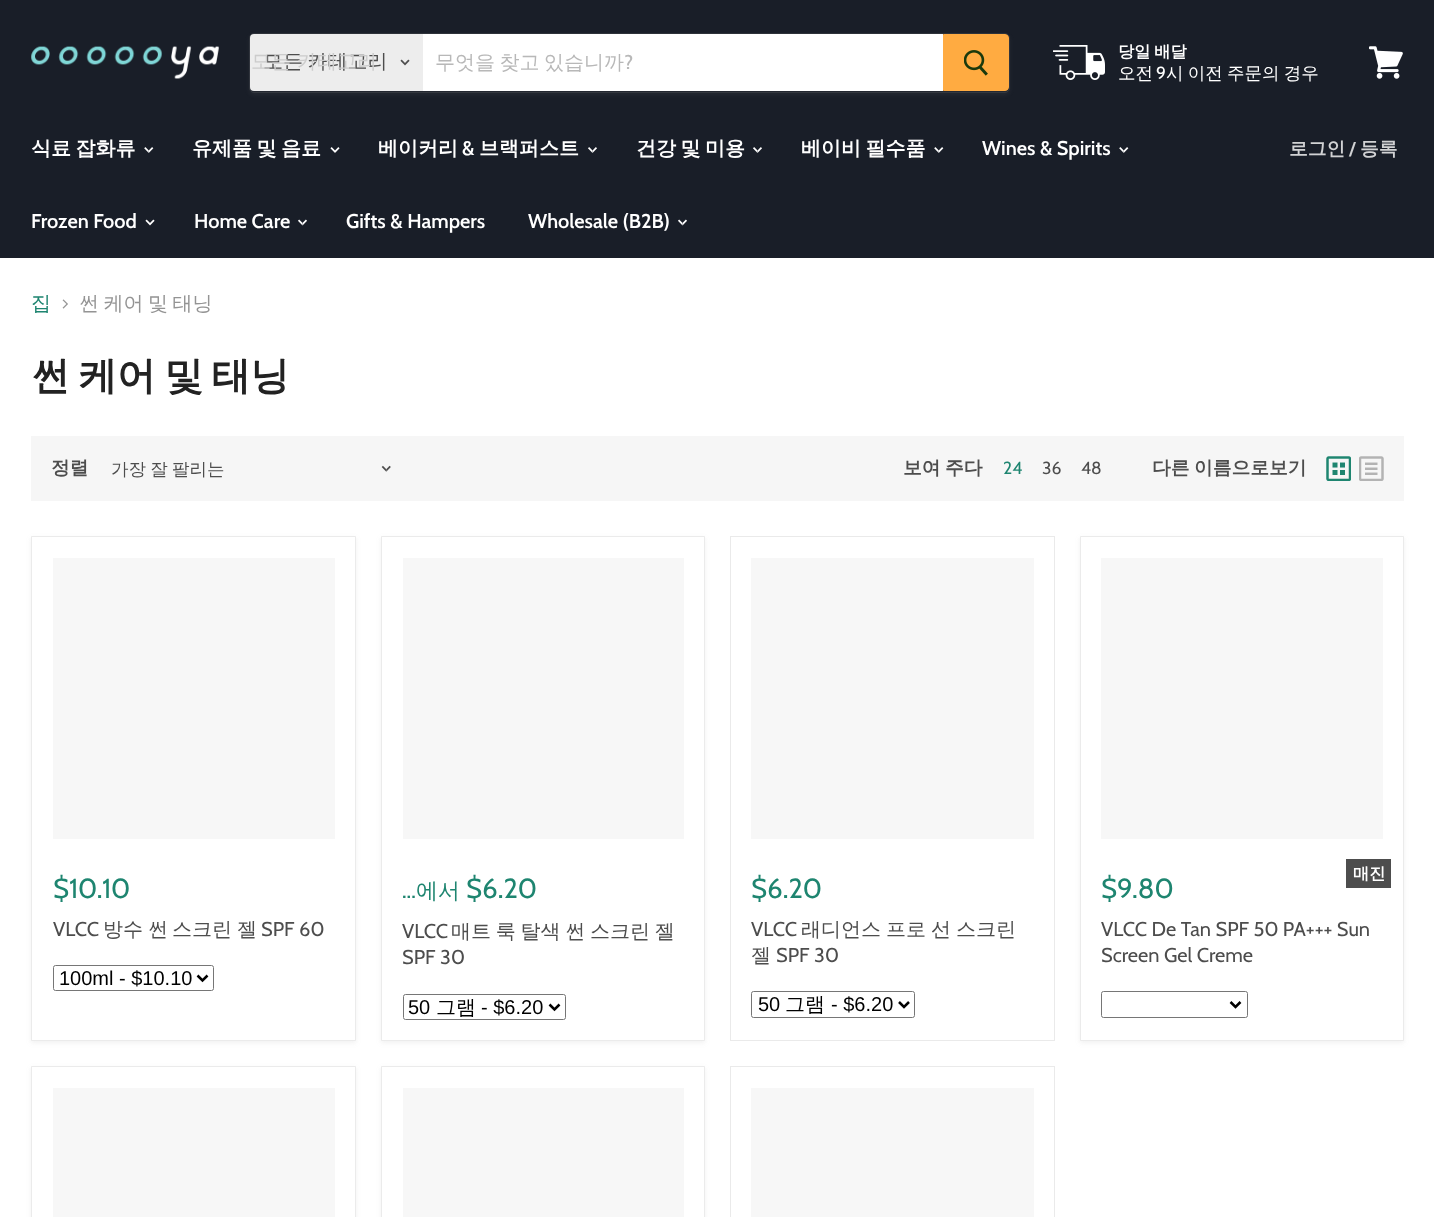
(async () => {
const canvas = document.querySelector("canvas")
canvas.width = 1434
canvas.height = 1217
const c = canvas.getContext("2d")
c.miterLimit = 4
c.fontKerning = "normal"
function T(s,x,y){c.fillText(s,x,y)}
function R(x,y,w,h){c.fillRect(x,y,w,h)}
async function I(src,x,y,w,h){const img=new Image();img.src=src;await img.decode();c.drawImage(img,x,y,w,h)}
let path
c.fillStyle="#fff"
R(0,0,1434,1217)
c.fillStyle="#191e28"
R(0,0,1434,258)
await I("1.png",31,46,188,33)
c.fillStyle="#7f7f7f1c"
c.filter="blur(2px)"
c.beginPath()
c.roundRect(249,35,761,60,5)
c.fill()
c.filter="none"
c.beginPath()
c.roundRect(249.5,33.5,760,59,4.5)
c.strokeStyle="#7f7f7f33"
c.stroke()
c.fillStyle="#ededed"
c.beginPath()
c.roundRect(250,34,173,57,[4,0,0,4])
c.fill()
c.wordSpacing="-1.5px"
c.font="500 20px WenQuanYi Zen Hei"
c.fillStyle="#4d4d4d"
T("모든 카테고리",263,68)
c.wordSpacing="0px"
c.fillStyle="#ccc"
T("모든 카테고리",251,68)
await I("2.png",400,59,10,7)
c.fillStyle="#fff"
R(423,34,520,57)
c.wordSpacing="-1.5px"
c.fillStyle="#b8b8b8"
T("무엇을 찾고 있습니까",435,69)
c.wordSpacing="0px"
c.font="20px Cabin"
T("?",624,69)
c.fillStyle="#ffab41"
c.beginPath()
c.roundRect(943.5,34.5,65,56,[0,3.5,3.5,0])
c.fill()
c.strokeStyle="#ffab41"
c.stroke()
await I("3.png",964,50,24,26)
await I("4.png",1053,45,52,35)
c.wordSpacing="-1px"
c.font="bold 16.25px WenQuanYi Zen Hei"
c.fillStyle="#fff"
T("당일 배달",1118,57)
c.wordSpacing="0px"
c.font="500 17.5px WenQuanYi Zen Hei"
T("오전",1118,79)
c.font="17.5px Cabin"
T("9",1156,79)
c.wordSpacing="-1px"
c.font="500 17.5px WenQuanYi Zen Hei"
T("시 이전 주문의 경우",1166,79)
await I("5.png",1369,46,34,33)
c.wordSpacing="-1.5px"
c.font="bold 20px WenQuanYi Zen Hei"
T("식료 잡화류",31,155)
await I("6.png",144,147,10,6)
T("유제품 및 음료",192,155)
await I("7.png",330,147,10,6)
c.wordSpacing="0px"
T("베이커리",378,155)
c.font="600 20px Cabin"
T("&",462,155)
c.font="bold 20px WenQuanYi Zen Hei"
T("브랙퍼스트",479,155)
await I("8.png",588,147,9,6)
c.wordSpacing="-1.5px"
T("건강 및 미용",636,155)
await I("8.png",753,147,9,6)
T("베이비 필수품",801,155)
await I("6.png",934,147,10,6)
c.wordSpacing="0px"
c.font="600 20px Cabin"
T("Wines & Spirits",982,155)
await I("6.png",1119,147,10,6)
T("Frozen Food",31,228)
await I("9.png",145,219,10,7)
T("Home Care",194,228)
await I("10.png",298,219,9,7)
T("Gifts & Hampers",346,228)
T("Wholesale (B2B)",528,228)
await I("10.png",678,219,9,7)
c.font="bold 18.75px WenQuanYi Zen Hei"
c.fillStyle="#d1d2d4"
T("로그인",1289,155)
c.font="600 18.75px Cabin"
T("/",1349,155)
c.font="bold 18.75px WenQuanYi Zen Hei"
T("등록",1360,155)
c.font="500 20px WenQuanYi Zen Hei"
c.fillStyle="#1e8570"
T("집",31,310)
await I("11.png",62,299,6,10)
c.wordSpacing="-1.5px"
c.fillStyle="#949494"
T("썬 케어 및 태닝",79,310)
c.wordSpacing="-3px"
c.font="bold 38.75px WenQuanYi Zen Hei"
c.fillStyle="#222"
T("썬 케어 및 태닝",31,389)
c.fillStyle="#f6f6f6"
R(31,436,1373,65)
c.wordSpacing="0px"
c.font="bold 18.75px WenQuanYi Zen Hei"
c.fillStyle="#4d4d4d"
T("정렬",51,474)
c.wordSpacing="-1px"
c.font="500 17.5px WenQuanYi Zen Hei"
T("가장 잘 팔리는",111,475)
await I("12.png",381,465,10,7)
c.font="bold 18.75px WenQuanYi Zen Hei"
T("보여 주다",903,474)
c.wordSpacing="0px"
c.font="17.5px Cabin"
c.fillStyle="#1e8570"
T("24",1003,474)
c.fillStyle="#4d4d4d"
T("36",1042,474)
T("48",1081,474)
c.wordSpacing="-1px"
c.font="bold 18.75px WenQuanYi Zen Hei"
T("다른 이름으로보기",1152,474)
await I("13.png",1326,456,25,25)
await I("14.png",1359,456,25,25)
c.fillStyle="#7f7f7f1c"
c.filter="blur(2.5px)"
c.beginPath()
c.rect(31,538,325,505)
c.fill()
c.filter="none"
c.fillStyle="#fff"
c.beginPath()
c.rect(31.5,536.5,324,504)
c.fill()
c.strokeStyle="#ebebeb"
c.stroke()
c.fillStyle="#f7f7f7"
R(53,558,282,281)
c.wordSpacing="0px"
c.font="27.5px Cabin"
c.fillStyle="#1e8570"
T("$10.10",53,898)
c.font="20px Cabin"
c.fillStyle="#4d4d4d"
T("VLCC",53,936)
c.font="500 20px WenQuanYi Zen Hei"
T("방수",103,936)
T("썬",148,936)
T("스크린",172,936)
T("젤",237,936)
c.font="20px Cabin"
T("SPF 60",261,936)
c.beginPath()
c.roundRect(53.5,965.5,160,25,2)
c.strokeStyle="#767676"
c.stroke()
path = new Path2D("M197.5 975.5l5 5l5-5")
c.strokeStyle="#000"
c.lineWidth=2.5
c.stroke(path)
c.font="20px Liberation Sans"
c.fillStyle="#000"
T("100ml - $10.10",59,985)
c.fillStyle="#7f7f7f1c"
c.filter="blur(2.5px)"
c.beginPath()
c.rect(381,538,324,505)
c.fill()
c.filter="none"
c.fillStyle="#fff"
c.beginPath()
c.rect(381.5,536.5,323,504)
c.fill()
c.strokeStyle="#ebebeb"
c.lineWidth=1
c.stroke()
c.fillStyle="#f7f7f7"
R(403,558,281,281)
c.font="22px Cabin"
c.fillStyle="#1e8570"
T("...",402,898)
c.font="500 22px WenQuanYi Zen Hei"
T("에서",416,898)
c.font="27.5px Cabin"
T("$6.20",466,898)
c.font="20px Cabin"
c.fillStyle="#4d4d4d"
T("VLCC",402,938)
c.wordSpacing="-1.25px"
c.font="500 20px WenQuanYi Zen Hei"
T("매트 룩 탈색 썬 스크린 젤",451,938)
c.wordSpacing="0px"
c.font="20px Cabin"
T("SPF 30",402,964)
c.beginPath()
c.roundRect(403.5,994.5,162,25,2)
c.strokeStyle="#767676"
c.stroke()
path = new Path2D("M549.5 1004.5l5 5l5-5")
c.strokeStyle="#000"
c.lineWidth=2.5
c.stroke(path)
c.font="20px Liberation Sans"
c.fillStyle="#000"
T("50",408,1014)
c.font="500 20px WenQuanYi Zen Hei"
T("그램",436,1014)
c.font="20px Liberation Sans"
T("- $6.20",481,1014)
c.strokeStyle="#eaeaea"
c.lineWidth=1
c.strokeRect(730.5,536.5,324,504)
c.fillStyle="#f7f7f7"
R(751,558,283,281)
c.font="27.5px Cabin"
c.fillStyle="#1e8570"
T("$6.20",751,898)
c.font="20px Cabin"
c.fillStyle="#4d4d4d"
T("VLCC",751,936)
c.wordSpacing="-1px"
c.font="500 20px WenQuanYi Zen Hei"
T("래디언스 프로 선 스크린",801,936)
c.wordSpacing="0px"
T("젤",751,962)
c.font="20px Cabin"
T("SPF 30",776,962)
c.beginPath()
c.roundRect(751.5,991.5,163,26,2)
c.strokeStyle="#767676"
c.stroke()
path = new Path2D("M899 1002l5 5l5-5")
c.strokeStyle="#000"
c.lineWidth=2.5
c.stroke(path)
c.font="20px Liberation Sans"
c.fillStyle="#000"
T("50",758,1011)
c.font="500 20px WenQuanYi Zen Hei"
T("그램",785,1011)
c.font="20px Liberation Sans"
T("- $6.20",831,1011)
c.fillStyle="#7f7f7f1c"
c.filter="blur(2.5px)"
c.beginPath()
c.rect(1080,538,324,505)
c.fill()
c.filter="none"
c.fillStyle="#fff"
c.beginPath()
c.rect(1080.5,536.5,323,504)
c.fill()
c.strokeStyle="#ebebeb"
c.lineWidth=1
c.stroke()
c.fillStyle="#f7f7f7"
R(1101,558,282,281)
c.font="27.5px Cabin"
c.fillStyle="#1e8570"
T("$9.80",1101,898)
c.fillStyle="#4d4d4d"
R(1346,859,45,29)
c.font="bold 16.25px WenQuanYi Zen Hei"
c.fillStyle="#fff"
T("매진",1353,879)
c.font="20px Cabin"
c.fillStyle="#4d4d4d"
T("VLCC De Tan SPF 50 PA+++ Sun",1101,936)
T("Screen Gel Creme",1101,962)
c.beginPath()
c.roundRect(1101.5,991.5,146,26,2)
c.strokeStyle="#767676"
c.stroke()
path = new Path2D("M1230.5 1002l5 5l5-5")
c.strokeStyle="#000"
c.lineWidth=2.5
c.stroke(path)
c.fillStyle="#7f7f7f1c"
c.filter="blur(2.5px)"
c.beginPath()
c.rect(31,1068,325,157)
c.fill()
c.filter="none"
c.fillStyle="#fff"
c.beginPath()
c.rect(31.5,1066.5,324,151)
c.fill()
c.strokeStyle="#ebebeb"
c.lineWidth=1
c.stroke()
c.fillStyle="#f7f7f7"
R(53,1088,282,129)
c.fillStyle="#7f7f7f1c"
c.filter="blur(2.5px)"
c.beginPath()
c.rect(381,1068,324,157)
c.fill()
c.filter="none"
c.fillStyle="#fff"
c.beginPath()
c.rect(381.5,1066.5,323,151)
c.fill()
c.stroke()
c.fillStyle="#f7f7f7"
R(403,1088,281,129)
c.strokeStyle="#eaeaea"
c.strokeRect(730.5,1066.5,324,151)
R(751,1088,283,129)
})()
